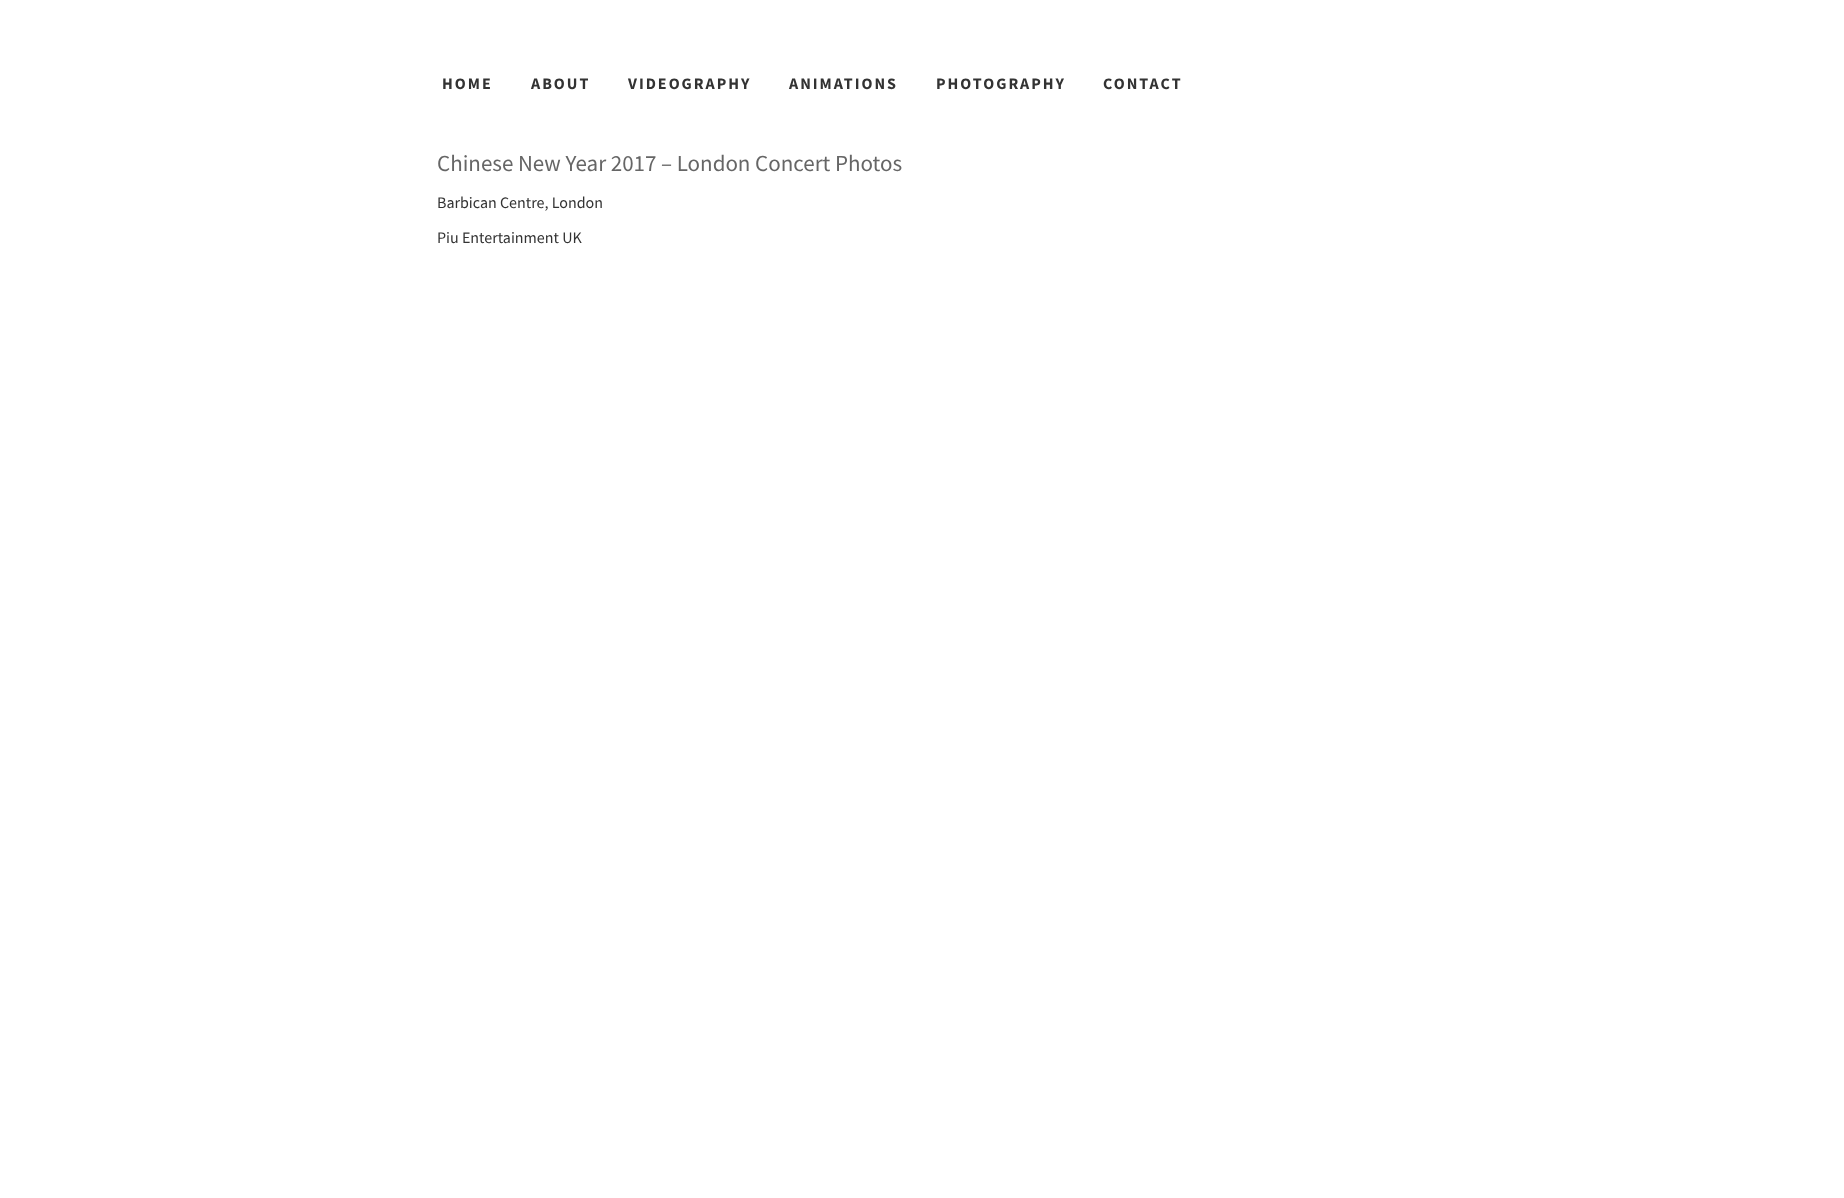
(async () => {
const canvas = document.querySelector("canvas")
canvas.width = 1844
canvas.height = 1198
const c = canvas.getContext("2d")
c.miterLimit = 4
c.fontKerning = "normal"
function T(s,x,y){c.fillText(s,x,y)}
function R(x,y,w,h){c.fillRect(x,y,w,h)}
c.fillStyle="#fff"
R(0,0,1844,1198)
c.letterSpacing="2px"
c.font="bold 16px Source Sans Pro"
c.fillStyle="#333"
T("HOME",442,89)
T("ABOUT",531,89)
T("VIDEOGRAPHY",628,89)
T("ANIMATIONS",789,89)
T("PHOTOGRAPHY",936,89)
T("CONTACT",1103,89)
c.letterSpacing="0px"
c.font="23px Source Sans Pro"
c.fillStyle="#666"
T("Chinese New Year 2017 – London Concert Photos",437,171)
c.font="16px Source Sans Pro"
c.fillStyle="#333"
T("Barbican Centre, London",437,208)
T("Piu Entertainment UK",437,243)
})()
